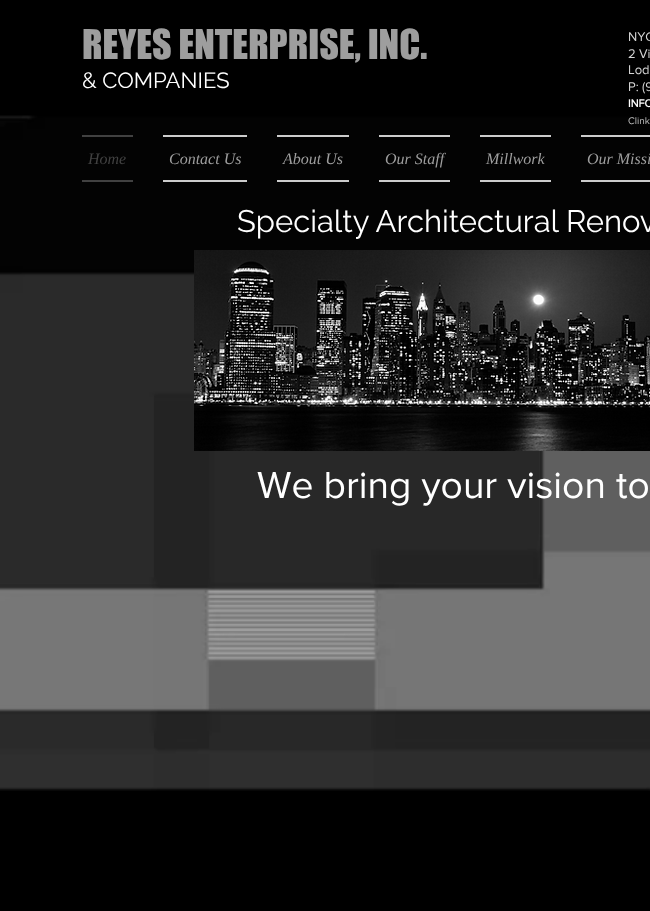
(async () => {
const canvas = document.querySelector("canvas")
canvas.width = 650
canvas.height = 911
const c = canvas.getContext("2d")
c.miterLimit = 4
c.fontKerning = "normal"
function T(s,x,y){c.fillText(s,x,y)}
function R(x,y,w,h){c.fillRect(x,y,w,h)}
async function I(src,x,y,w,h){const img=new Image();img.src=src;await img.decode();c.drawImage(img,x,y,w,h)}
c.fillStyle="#000"
R(0,0,650,911)
c.font="38px 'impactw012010'"
c.fillStyle="#9e9e9e"
T("REYES ENTERPRISE, INC.",82,59)
c.font="22px Raleway"
c.fillStyle="#fff"
T("& COMPANIES",82,88)
c.font="13px 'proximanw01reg'"
c.fillStyle="#d5d5d5"
T("NYC",628,41)
T("2 Vi",628,58)
T("Lod",628,74)
T("P: (9",628,91)
c.font="bold 11px 'proximanw01reg'"
c.fillStyle="#fff"
T("INFO",628,107)
await I("2.png",0,115,650,676)
c.font="10px 'proximanw01reg'"
c.fillStyle="#c0c0c0"
T("Clink",628,124)
c.fillStyle="#414141"
R(82,135,51,2)
R(82,180,51,2)
c.font="italic 16px Liberation Serif"
T("Home",88,164)
c.fillStyle="#ccc"
R(163,135,84,2)
R(163,180,84,2)
c.fillStyle="#9e9e9e"
T("Contact Us",169,164)
c.fillStyle="#ccc"
R(277,135,72,2)
R(277,180,72,2)
c.fillStyle="#9e9e9e"
T("About Us",283,164)
c.fillStyle="#ccc"
R(379,135,71,2)
R(379,180,71,2)
c.fillStyle="#9e9e9e"
T("Our Staff",385,164)
c.fillStyle="#ccc"
R(480,135,71,2)
R(480,180,71,2)
c.fillStyle="#9e9e9e"
T("Millwork",486,164)
c.fillStyle="#ccc"
R(581,135,69,2)
R(581,180,69,2)
c.fillStyle="#9e9e9e"
T("Our Missi",587,164)
c.font="31px Raleway"
c.fillStyle="#fff"
T("Specialty Architectural Renov",237,232)
await I("1.png",194,250,456,201)
c.font="39px 'proximanw01reg'"
T("We bring your vision to",257,498)
})()
